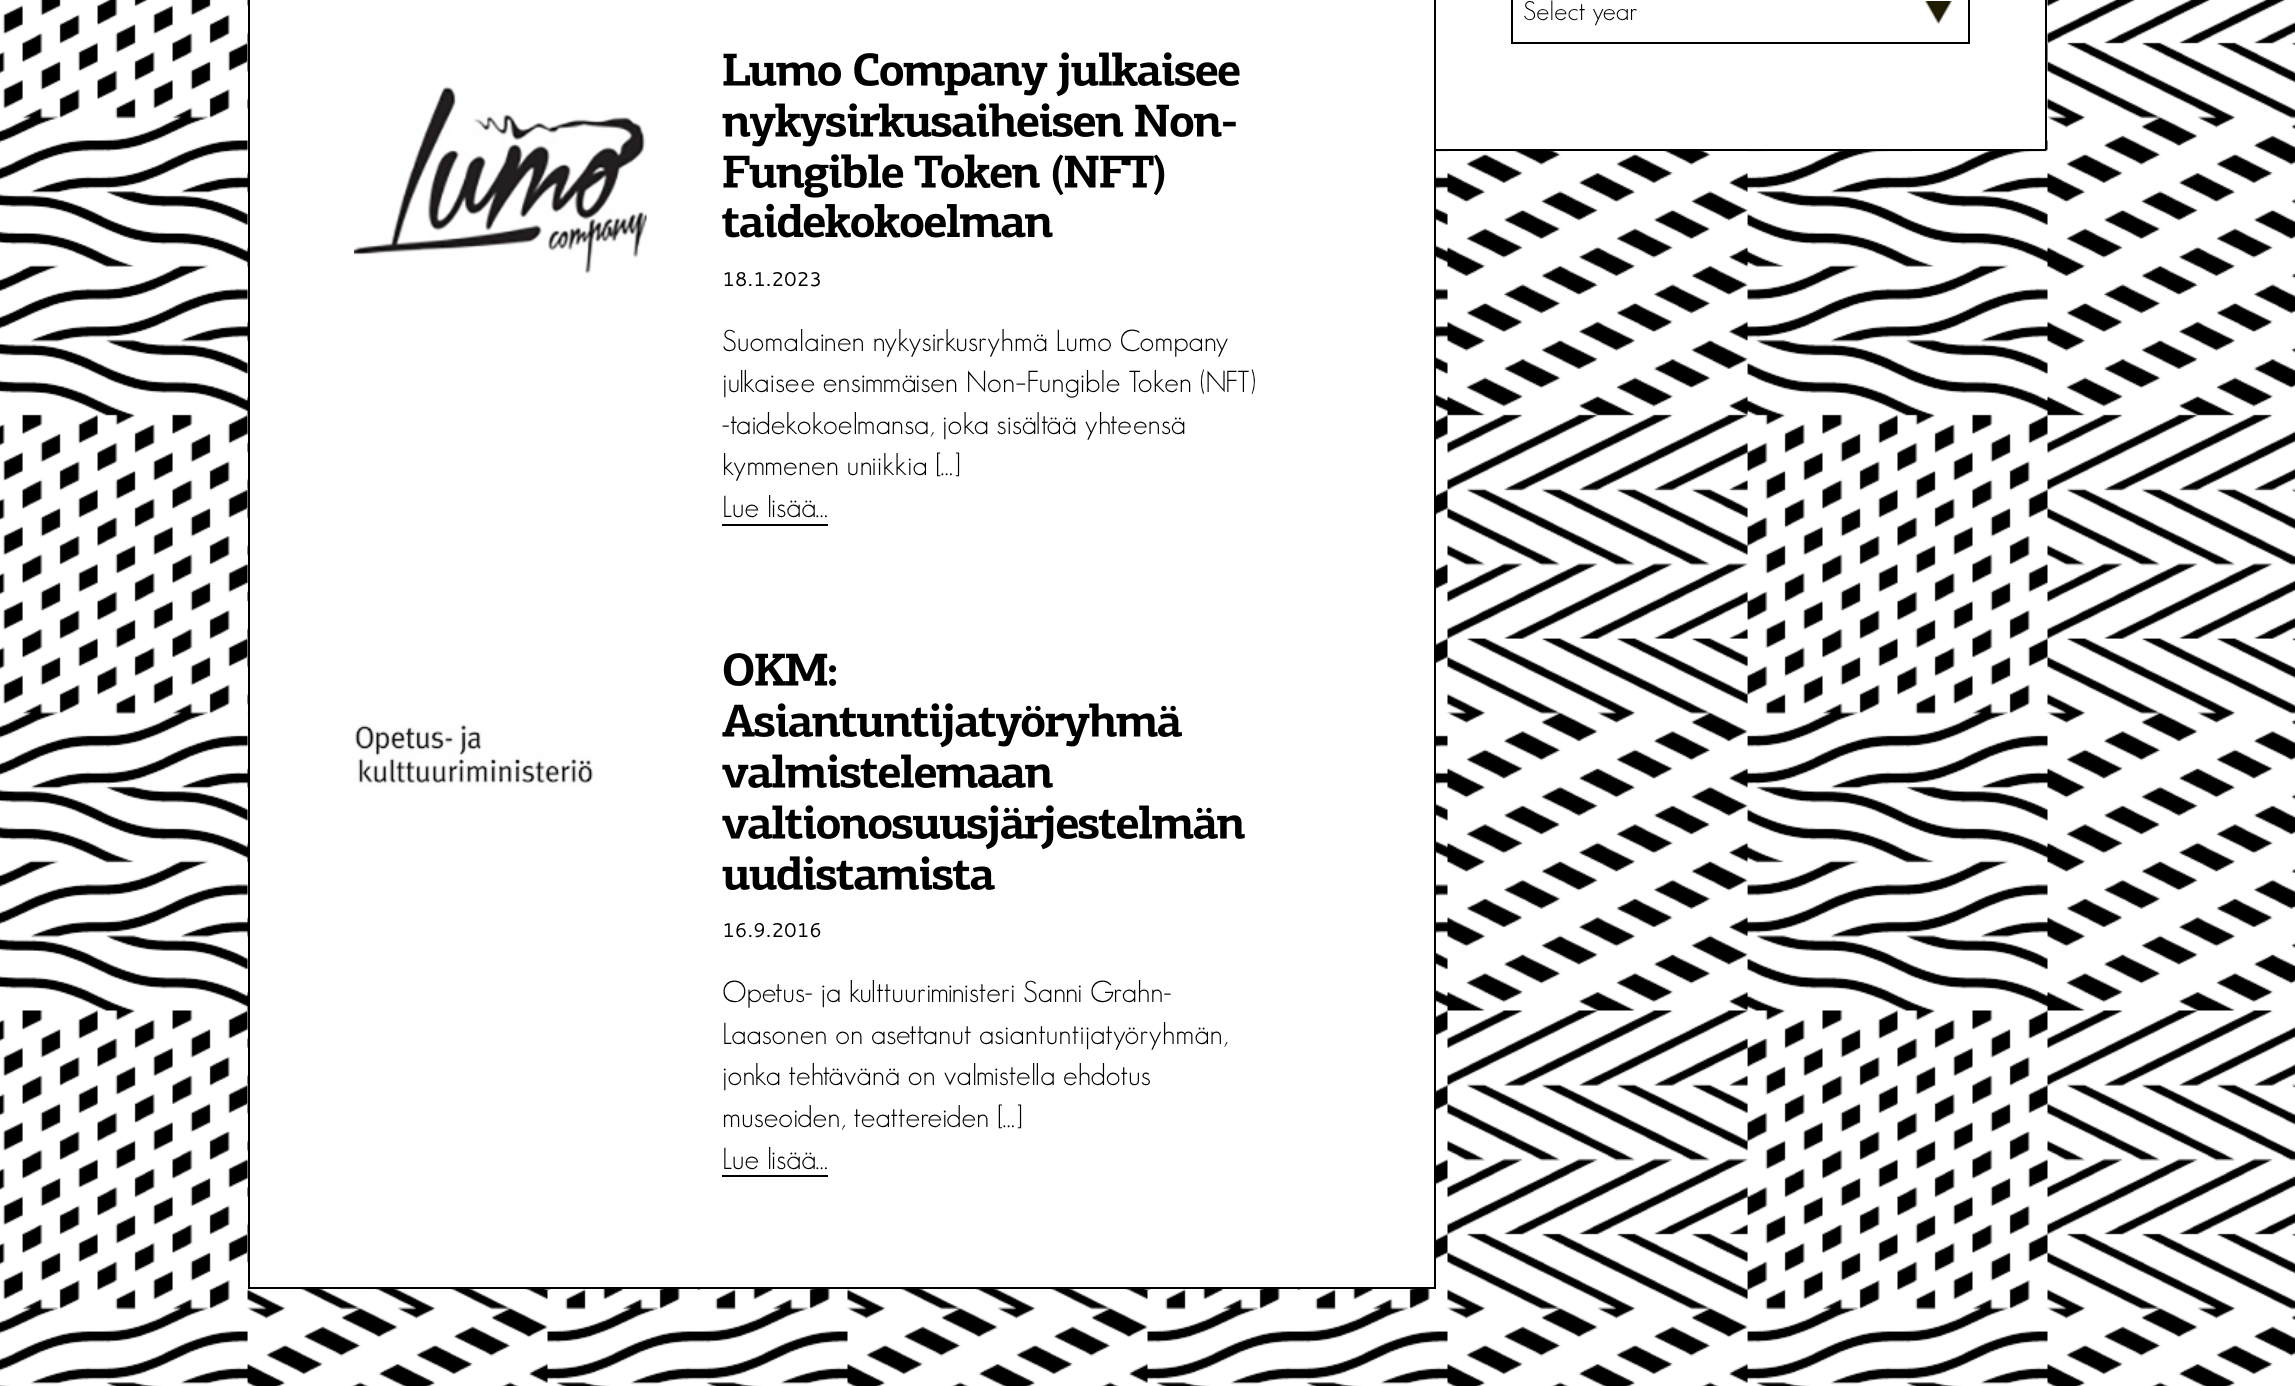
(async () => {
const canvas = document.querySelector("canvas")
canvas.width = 2295
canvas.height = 1386
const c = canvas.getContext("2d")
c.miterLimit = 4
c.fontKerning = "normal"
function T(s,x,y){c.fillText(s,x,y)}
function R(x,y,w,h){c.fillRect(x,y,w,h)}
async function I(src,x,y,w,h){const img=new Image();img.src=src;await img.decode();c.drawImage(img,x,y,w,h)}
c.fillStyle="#fff"
R(0,0,2295,1386)
await I("1.png",0,0,2295,1386)
R(1436,0,609,149)
c.fillStyle="#000"
R(2045,0,2,150)
R(1434,149,612,2)
await I("2.png",1924,1,28,23)
c.strokeStyle="#000"
c.lineWidth=2
c.strokeRect(1512,-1,457,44)
c.font="300 26.5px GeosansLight"
T("Select year",1523,20)
c.fillStyle="#fff"
c.beginPath()
c.rect(249,-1,1186,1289)
c.fill()
c.stroke()
await I("3.png",354,86,293,188)
await I("4.png",723,52,517,45)
await I("5.png",722,103,514,44)
await I("6.png",723,154,442,44)
await I("7.png",722,203,331,35)
c.font="20px Cantarell"
c.fillStyle="#000"
T("18.1.2023",722,286)
c.font="300 29.75px GeosansLight"
T("Suomalainen nykysirkusryhmä Lumo Company",722,351)
T("julkaisee ensimmäisen Non–Fungible Token (NFT)",722,392)
T("-taidekokoelmansa, joka sisältää yhteensä",722,434)
T("kymmenen uniikkia […]",722,475)
T("Lue lisää…",722,517)
R(722,524,106,2)
await I("8.png",355,724,238,64)
await I("9.png",723,653,114,33)
await I("10.png",722,703,461,45)
await I("11.png",722,754,331,34)
await I("12.png",722,805,523,45)
await I("13.png",722,856,273,34)
c.font="20px Cantarell"
T("16.9.2016",722,937)
c.font="300 29.75px GeosansLight"
T("Opetus- ja kulttuuriministeri Sanni Grahn-",722,1002)
T("Laasonen on asettanut asiantuntijatyöryhmän,",722,1044)
T("jonka tehtävänä on valmistella ehdotus",722,1085)
T("museoiden, teattereiden […]",722,1127)
T("Lue lisää…",722,1169)
R(722,1175,106,2)
})()
